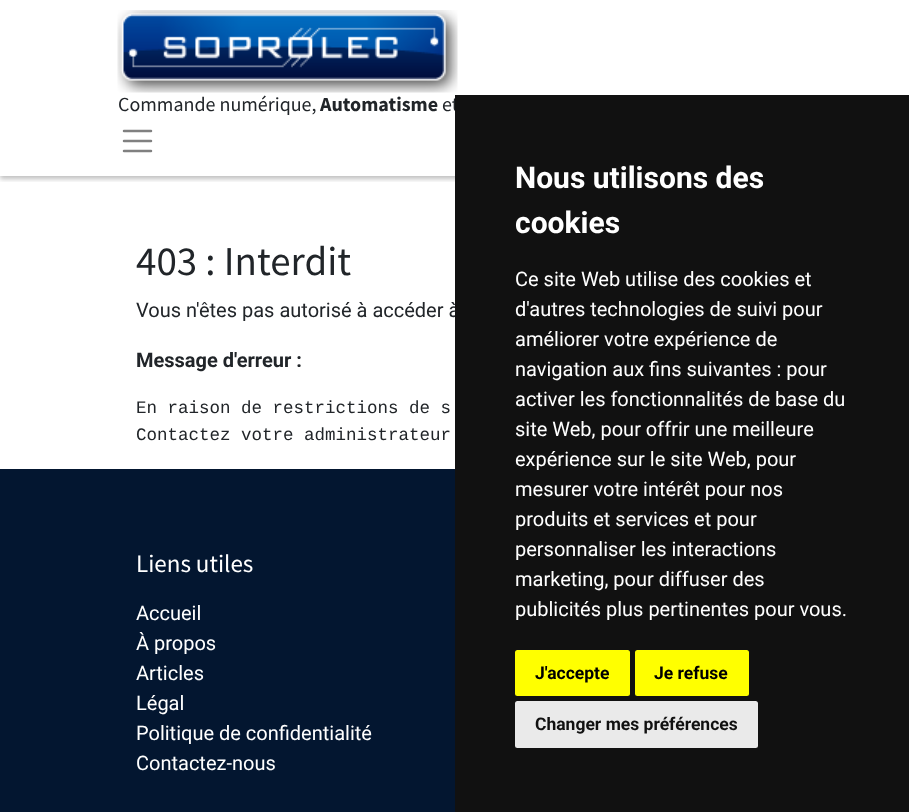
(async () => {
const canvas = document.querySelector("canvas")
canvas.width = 909
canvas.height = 812
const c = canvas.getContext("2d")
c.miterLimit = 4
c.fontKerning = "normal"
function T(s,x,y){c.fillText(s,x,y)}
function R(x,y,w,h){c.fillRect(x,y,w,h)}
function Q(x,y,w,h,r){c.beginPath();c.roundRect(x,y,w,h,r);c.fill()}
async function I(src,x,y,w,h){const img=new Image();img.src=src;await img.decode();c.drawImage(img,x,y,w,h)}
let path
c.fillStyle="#fff"
R(0,0,909,812)
c.save()
c.beginPath()
c.rect(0,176,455,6)
c.clip()
c.fillStyle="#00000040"
c.filter="blur(2.5px)"
c.beginPath()
c.rect(0,3,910,176)
c.fill()
c.filter="none"
c.restore()
await I("1.png",117,10,341,83)
c.font="20px Source Sans Pro"
c.fillStyle="#212529"
T("Commande numérique,",118,111)
c.font="bold 20px Source Sans Pro"
T("Automatisme",320,111)
c.font="20px Source Sans Pro"
T("et",442,111)
path = new Path2D("M124 131h27m-27 10h27m-27 10h27")
c.strokeStyle="#808080"
c.lineWidth=2.5
c.lineCap="round"
c.stroke(path)
c.font="41px Source Sans Pro"
T("403 : Interdit",136,275)
c.font="20px Roboto"
T("Vous n'êtes pas autorisé à accéder à",136,317)
c.font="bold 20px Roboto"
T("Message d'erreur :",136,367)
c.font="17.5px Liberation Mono"
T("En raison de restrictions de s",136,413)
T("Contactez votre administrateur",136,440)
c.fillStyle="#031630"
R(0,469,455,343)
c.font="25px Source Sans Pro"
c.fillStyle="#fff"
T("Liens utiles",136,572)
c.font="20px Roboto"
T("Accueil",136,620)
T("À propos",136,650)
T("Articles",136,680)
T("Légal",136,710)
T("Politique de confidentialité",136,740)
T("Contactez-nous",136,770)
c.fillStyle="#111"
R(455,95,454,717)
c.font="bold 30px Roboto"
c.fillStyle="#fff"
T("Nous utilisons des",515,188)
T("cookies",515,233)
c.font="20px Roboto"
T("Ce site Web utilise des cookies et",515,286)
T("d'autres technologies de suivi pour",515,316)
T("améliorer votre expérience de",515,346)
T("navigation aux fins suivantes : pour",515,376)
T("activer les fonctionnalités de base du",515,406)
T("site Web, pour offrir une meilleure",515,436)
T("expérience sur le site Web, pour",515,466)
T("mesurer votre intérêt pour nos",515,496)
T("produits et services et pour",515,526)
T("personnaliser les interactions",515,556)
T("marketing, pour diffuser des",515,586)
T("publicités plus pertinentes pour vous.",515,616)
c.fillStyle="#ff0"
Q(515,650,115,46,2.5)
c.font="bold 17.5px Roboto"
c.fillStyle="#000"
T("J'accepte",535,679)
c.fillStyle="#ff0"
Q(635,650,114,46,2.5)
c.fillStyle="#000"
T("Je refuse",654,679)
c.fillStyle="#eaeaea"
Q(515,701,243,47,2.5)
c.fillStyle="#111"
T("Changer mes préférences",535,730)
})()
